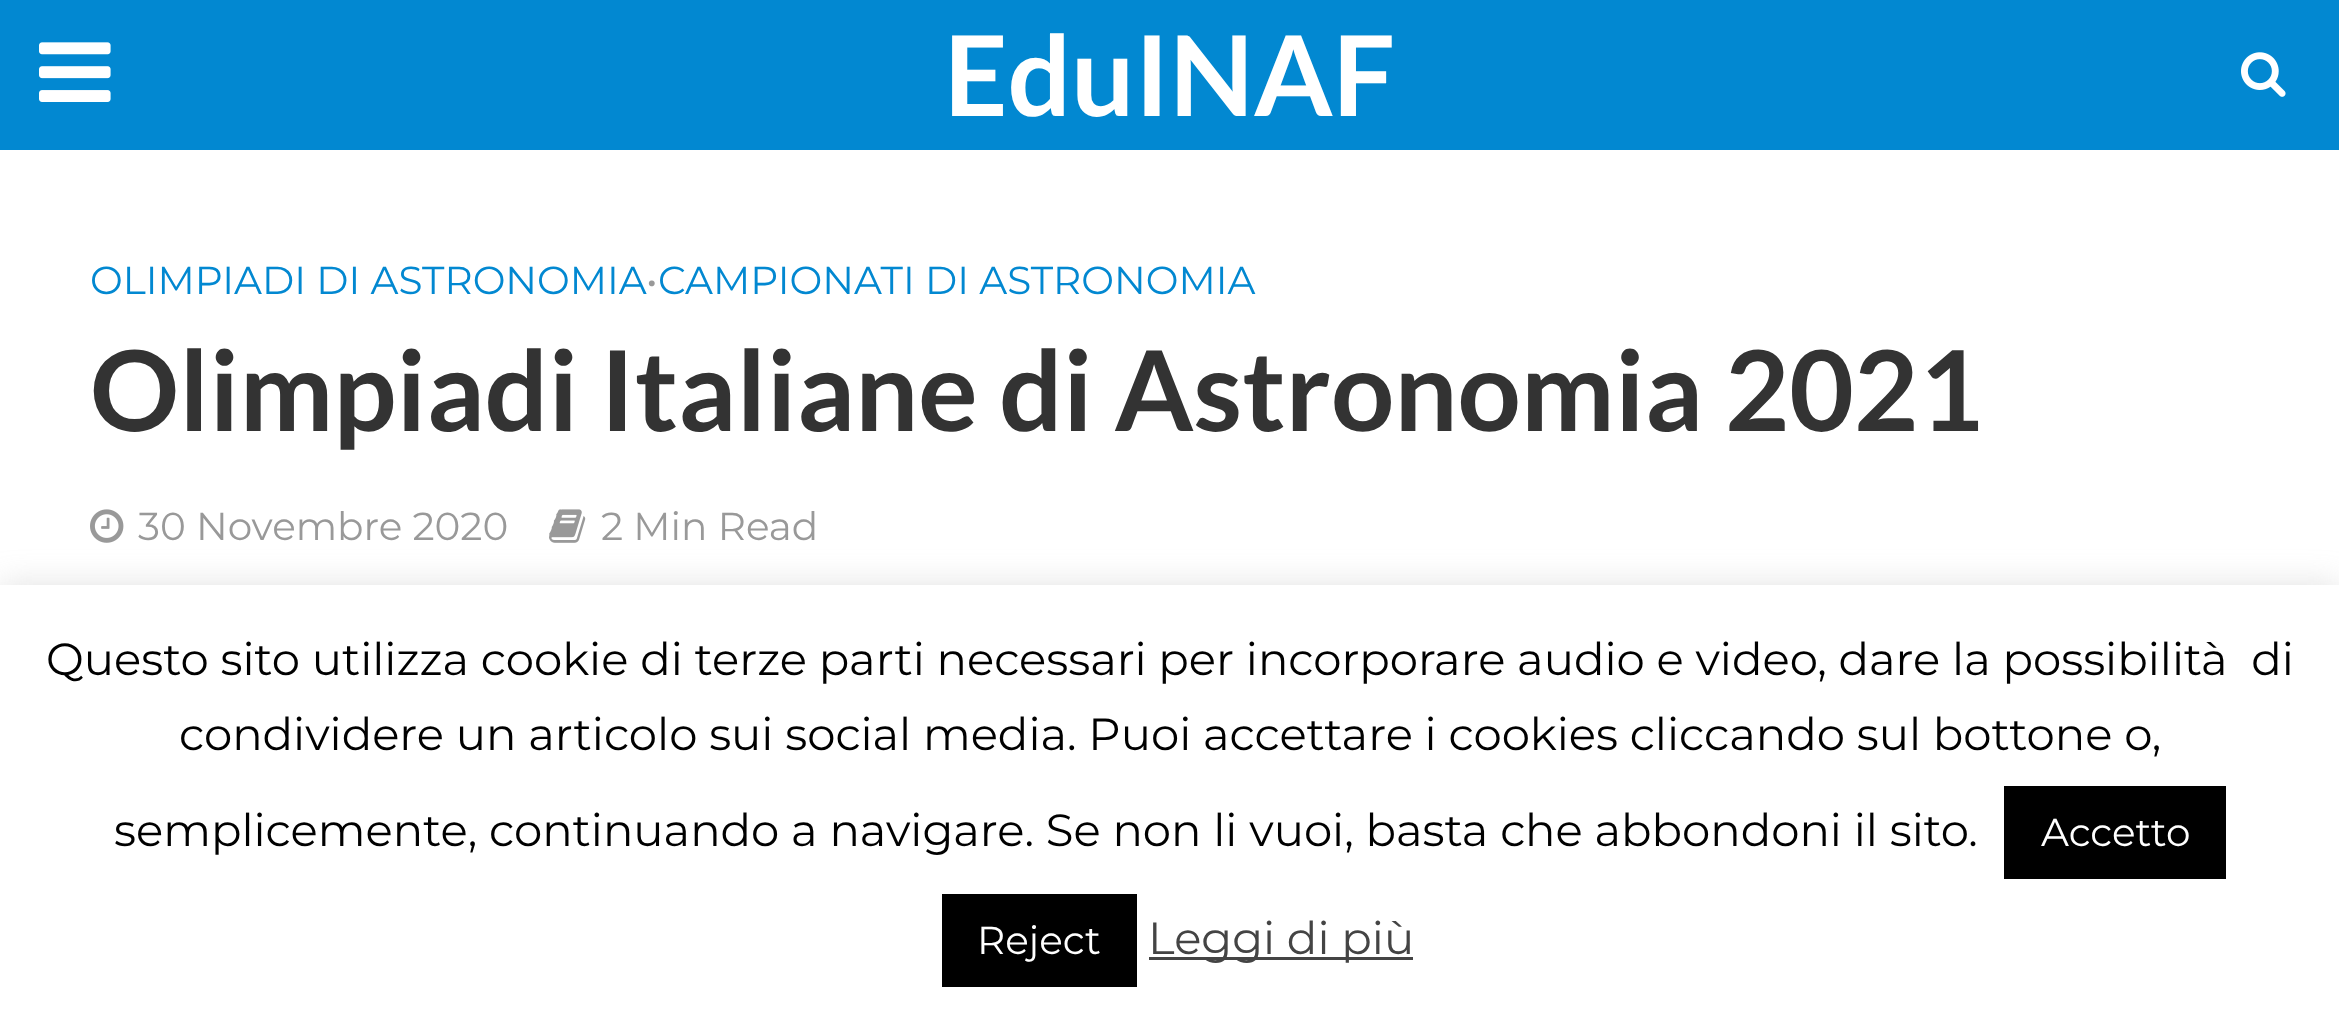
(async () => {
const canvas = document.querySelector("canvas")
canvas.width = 2339
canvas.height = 1022
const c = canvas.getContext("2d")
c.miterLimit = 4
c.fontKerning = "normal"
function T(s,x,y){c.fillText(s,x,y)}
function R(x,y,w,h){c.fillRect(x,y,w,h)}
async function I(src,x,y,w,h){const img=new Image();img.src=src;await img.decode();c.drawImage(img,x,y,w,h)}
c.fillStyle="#fff"
R(0,0,2339,1022)
c.fillStyle="#0288d1"
R(0,0,2339,150)
await I("1.png",39,42,72,60)
c.font="bold 111.4px Lato"
c.fillStyle="#fff"
T("EduINAF",944,116)
await I("2.png",2241,52,45,45)
c.font="100 39px Montserrat"
c.fillStyle="#0288d1"
T("OLIMPIADI DI ASTRONOMIA",90,294)
c.fillStyle="#999"
T("•",646,294)
c.fillStyle="#0288d1"
T("CAMPIONATI DI ASTRONOMIA",658,294)
c.font="bold 111.4px Lato"
c.fillStyle="#333"
T("Olimpiadi Italiane di Astronomia 2021",90,431)
await I("3.png",90,509,34,34)
c.font="100 39px Montserrat"
c.fillStyle="#999"
T("30 Novembre 2020",138,540)
await I("4.png",549,509,37,34)
T("2 Min Read",601,540)
c.fillStyle="#acabab4d"
c.filter="blur(15px)"
c.beginPath()
c.rect(0,582,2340,438)
c.fill()
c.filter="none"
c.fillStyle="#fff"
R(0,585,2339,437)
c.font="100 45px Montserrat"
c.fillStyle="#000"
T("Questo sito utilizza cookie di terze parti necessari per incorporare audio e video, dare la possibilità  di",46,675)
T("condividere un articolo sui social media. Puoi accettare i cookies cliccando sul bottone o,",179,750)
T("semplicemente, continuando a navigare. Se non li vuoi, basta che abbondoni il sito.",114,846)
R(2004,786,222,93)
c.font="100 39px Montserrat"
c.fillStyle="#fff"
T("Accetto",2041,846)
c.fillStyle="#000"
R(942,894,195,93)
c.fillStyle="#fff"
T("Reject",977,954)
c.fillStyle="#444"
R(1149,957,264,3)
c.font="100 45px Montserrat"
T("Leggi di più",1148,954)
})()
